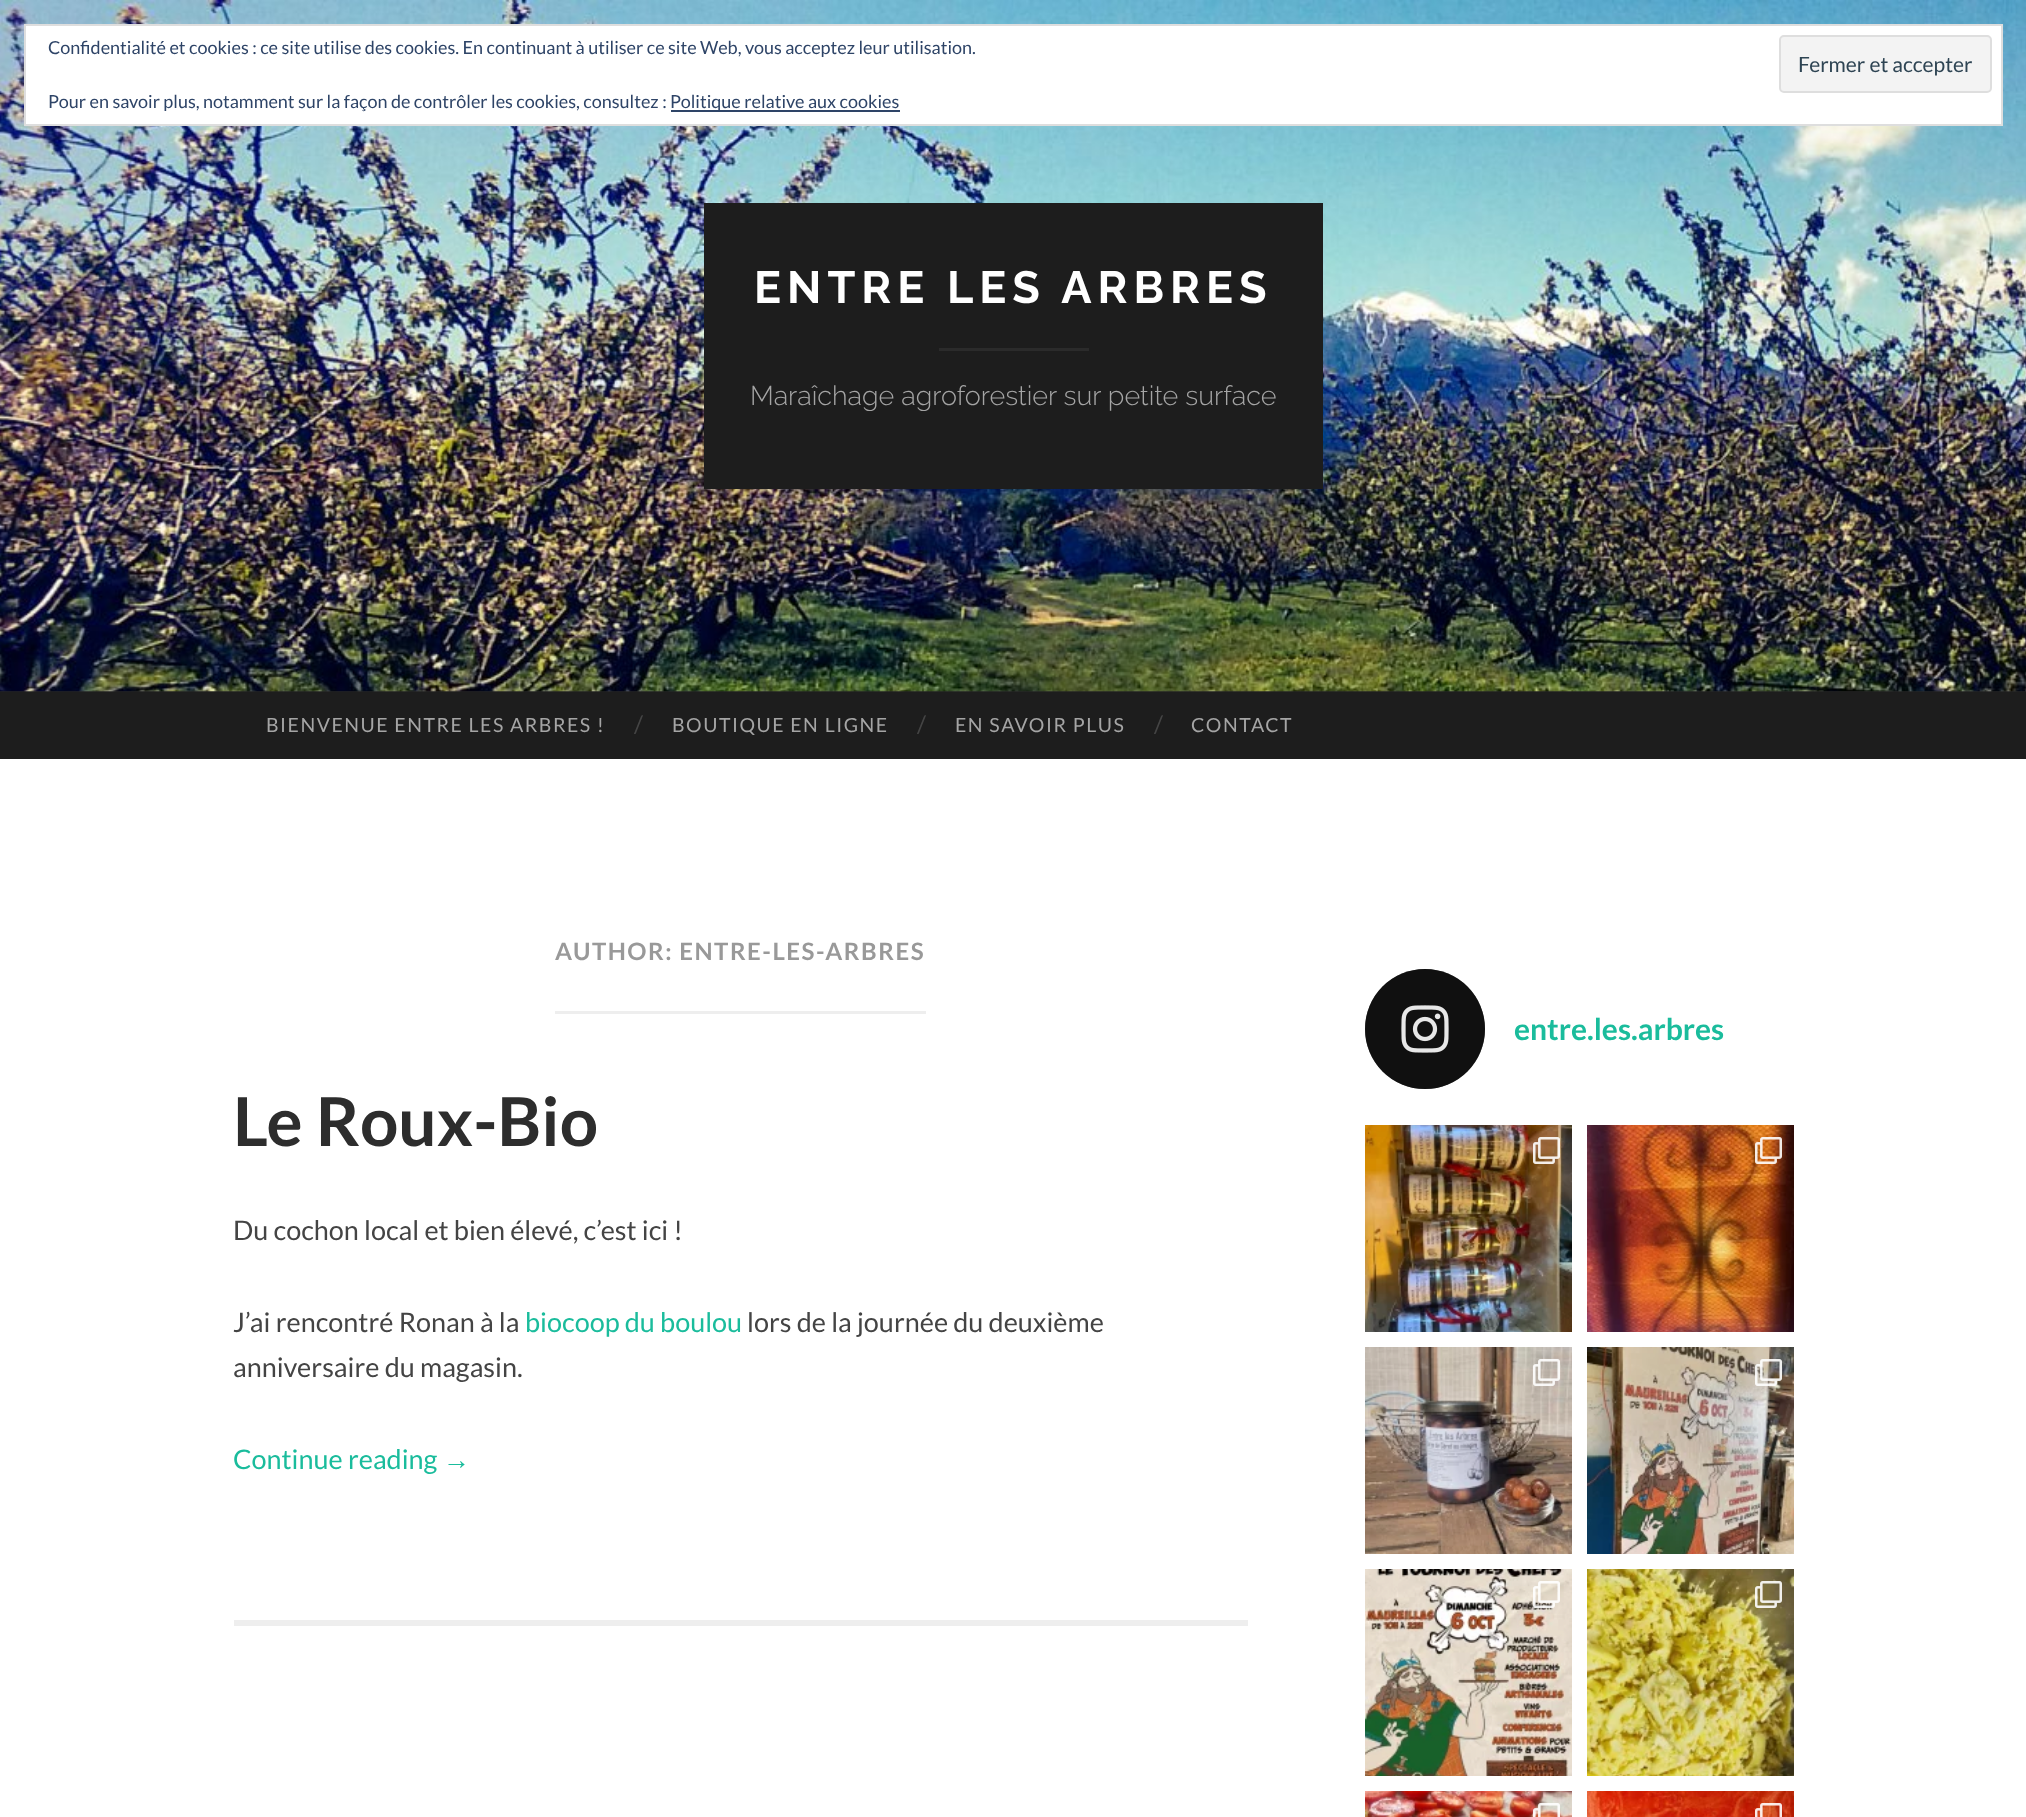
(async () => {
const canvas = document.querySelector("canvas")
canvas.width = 2026
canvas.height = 1817
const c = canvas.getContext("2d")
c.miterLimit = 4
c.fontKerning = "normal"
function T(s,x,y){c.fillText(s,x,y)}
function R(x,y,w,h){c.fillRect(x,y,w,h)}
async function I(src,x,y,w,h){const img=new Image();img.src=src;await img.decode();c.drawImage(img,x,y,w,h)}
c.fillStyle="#fff"
R(0,0,2026,1817)
c.fillStyle="#262626"
R(0,691,2026,1)
await I("1.png",0,0,2026,692)
c.fillStyle="#fff"
c.beginPath()
c.rect(25,25,1977,100)
c.fill()
c.strokeStyle="#dedede"
c.lineWidth=2
c.stroke()
c.font="18px Lato"
c.fillStyle="#2e4467"
T("Confidentialité et cookies : ce site utilise des cookies. En continuant à utiliser ce site Web, vous acceptez leur utilisation.",48,54)
c.fillStyle="#f3f3f3"
c.beginPath()
c.roundRect(1780,36,211,56,4)
c.fill()
c.stroke()
c.font="21px Lato"
c.fillStyle="#2e4453"
T("Fermer et accepter",1798,72)
c.font="18px Lato"
c.fillStyle="#2e4467"
T("Pour en savoir plus, notamment sur la façon de contrôler les cookies, consultez :",48,108)
R(671,110,229,2)
T("Politique relative aux cookies",670,108)
c.fillStyle="#1d1d1d"
R(704,203,619,286)
c.letterSpacing="6px"
c.font="bold 45px Raleway"
c.fillStyle="#fff"
T("ENTRE LES ARBRES",754,303)
c.fillStyle="#2b2b2b"
R(939,348,150,3)
c.letterSpacing="0px"
c.font="300 27px Raleway"
c.fillStyle="#a5a5a5"
T("Maraîchage agroforestier sur petite surface",750,405)
c.fillStyle="#1d1d1d"
R(0,692,2026,67)
c.letterSpacing="1.5px"
c.font="19.5px Lato"
c.fillStyle="#a5a5a5"
T("BIENVENUE ENTRE LES ARBRES !",266,732)
c.letterSpacing="0px"
c.font="24px Lato"
c.fillStyle="#444"
T("/",634,733)
c.letterSpacing="1.5px"
c.font="19.5px Lato"
c.fillStyle="#a5a5a5"
T("BOUTIQUE EN LIGNE",672,732)
c.letterSpacing="0px"
c.font="24px Lato"
c.fillStyle="#444"
T("/",917,733)
c.letterSpacing="1.5px"
c.font="19.5px Lato"
c.fillStyle="#a5a5a5"
T("EN SAVOIR PLUS",955,732)
c.letterSpacing="0px"
c.font="24px Lato"
c.fillStyle="#444"
T("/",1154,733)
c.letterSpacing="1.5px"
c.font="19.5px Lato"
c.fillStyle="#a5a5a5"
T("CONTACT",1191,732)
c.fillStyle="#eee"
R(555,1011,371,3)
c.font="bold 24px Lato"
c.fillStyle="#999"
T("AUTHOR: ENTRE-LES-ARBRES",555,960)
c.fillStyle="#eee"
R(234,1620,1014,6)
c.letterSpacing="0px"
c.font="bold 67.5px Lato"
c.fillStyle="#2d2d2d"
T("Le Roux-Bio",233,1146)
c.font="27px Lato"
c.fillStyle="#444"
T("Du cochon local et bien élevé, c’est ici !",233,1240)
T("J’ai rencontré Ronan à la",233,1332)
c.fillStyle="#1abc9c"
T("biocoop du boulou",525,1332)
c.fillStyle="#444"
T("lors de la journée du deuxième",747,1332)
T("anniversaire du magasin.",233,1377)
c.fillStyle="#1abc9c"
T("Continue reading",233,1469)
c.font="27px Liberation Sans"
T("→",443,1469)
c.fillStyle="#333"
c.beginPath()
c.arc(1425,1029,60,0,7)
c.fill()
c.fillStyle="#000000ad"
c.beginPath()
c.arc(1425,1029,60,0,7)
c.fill()
await I("2.png",1401,1005,48,48)
c.font="bold 30px Lato"
c.fillStyle="#1abc9c"
T("entre.les.arbres",1514,1040)
await I("3.png",1365,1125,207,207)
await I("4.png",1533,1137,27,27)
await I("5.png",1587,1125,207,207)
await I("6.png",1755,1137,27,27)
await I("7.png",1365,1347,207,207)
await I("8.png",1533,1359,27,27)
await I("9.png",1587,1347,207,207)
await I("10.png",1755,1359,27,27)
await I("11.png",1365,1569,207,207)
await I("12.png",1533,1581,27,27)
await I("13.png",1587,1569,207,207)
await I("14.png",1755,1581,27,27)
await I("15.png",1365,1791,207,26)
await I("16.png",1533,1803,27,14)
await I("17.png",1587,1791,207,26)
await I("18.png",1755,1803,27,14)
})()
